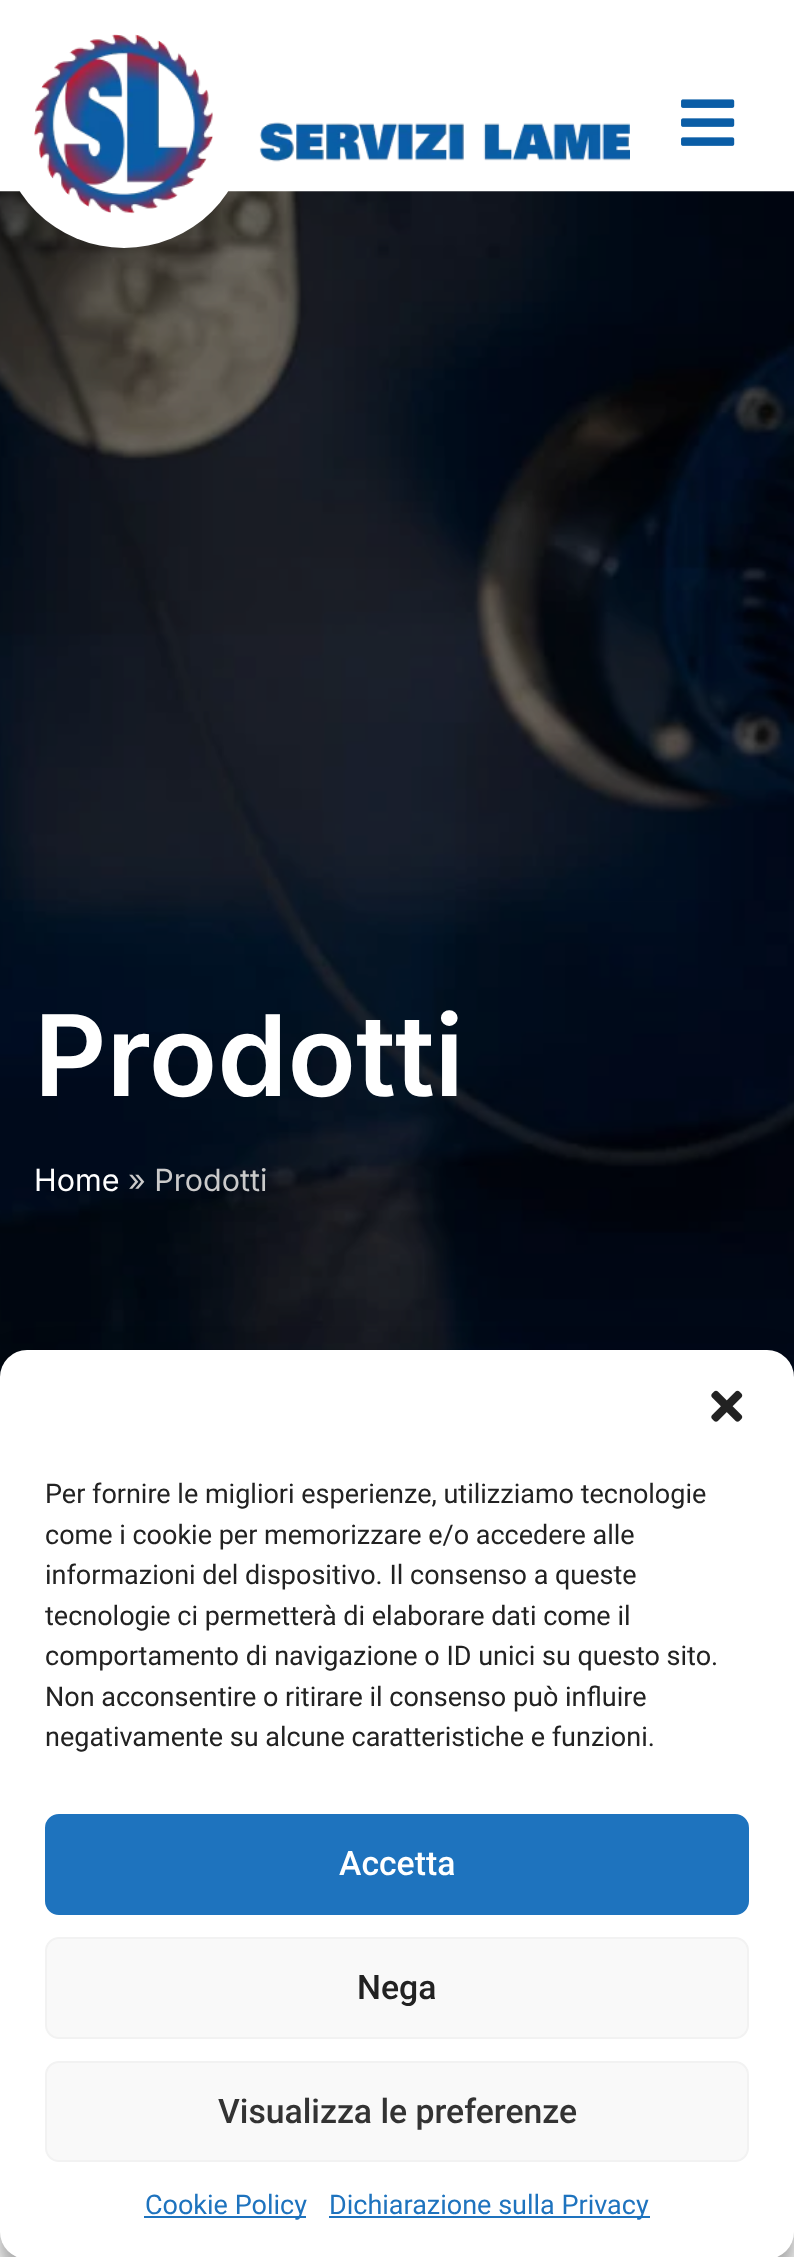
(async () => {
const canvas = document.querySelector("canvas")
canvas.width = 794
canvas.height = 2257
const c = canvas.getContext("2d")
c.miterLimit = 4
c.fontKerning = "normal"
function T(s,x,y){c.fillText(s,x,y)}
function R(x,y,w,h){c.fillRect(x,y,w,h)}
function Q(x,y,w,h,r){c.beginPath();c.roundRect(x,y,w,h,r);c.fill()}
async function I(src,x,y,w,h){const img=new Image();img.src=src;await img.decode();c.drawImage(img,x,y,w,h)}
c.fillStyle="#fff"
R(0,0,794,2257)
await I("4.png",0,191,794,1186)
c.beginPath()
c.arc(124,124,124,0,7)
c.fill()
await I("1.png",34,34,179,180)
await I("2.png",259,122,371,40)
await I("3.png",681,99,54,47)
c.font="600 112.5px Inter"
T("Prodotti",34,1096)
c.font="30.5px Inter"
T("Home",34,1191)
c.fillStyle="#cacaca"
T("» Prodotti",128,1191)
c.fillStyle="#0000003b"
c.filter="blur(7px)"
c.beginPath()
c.roundRect(0,1364,794,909,27)
c.fill()
c.filter="none"
c.fillStyle="#00000030"
c.filter="blur(22.5px)"
c.beginPath()
c.roundRect(0,1373,794,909,27)
c.fill()
c.filter="none"
c.fillStyle="#fff"
Q(0,1350,794,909,27)
await I("5.png",711,1390,32,32)
c.font="27px Roboto"
c.fillStyle="#222"
T("Per fornire le migliori esperienze, utilizziamo tecnologie",45,1503)
T("come i cookie per memorizzare e/o accedere alle",45,1544)
T("informazioni del dispositivo. Il consenso a queste",45,1584)
T("tecnologie ci permetterà di elaborare dati come il",45,1625)
T("comportamento di navigazione o ID unici su questo sito.",45,1665)
T("Non acconsentire o ritirare il consenso può influire",45,1706)
T("negativamente su alcune caratteristiche e funzioni.",45,1746)
c.fillStyle="#1e73be"
c.beginPath()
c.roundRect(46,1815,702,99,13)
c.fill()
c.strokeStyle="#1e73be"
c.lineWidth=2
c.stroke()
c.font="500 33.75px Roboto"
c.fillStyle="#fff"
T("Accetta",339,1875)
c.fillStyle="#f9f9f9"
c.beginPath()
c.roundRect(46,1938,702,100,13)
c.fill()
c.strokeStyle="#f2f2f2"
c.stroke()
c.fillStyle="#222"
T("Nega",357,1999)
c.fillStyle="#f9f9f9"
c.beginPath()
c.roundRect(46,2062,702,99,13)
c.fill()
c.stroke()
c.fillStyle="#333"
T("Visualizza le preferenze",218,2123)
c.fillStyle="#1e73be"
R(144,2216,162,2)
c.font="27px Roboto"
T("Cookie Policy",145,2214)
R(329,2216,321,2)
T("Dichiarazione sulla Privacy",329,2214)
})()
